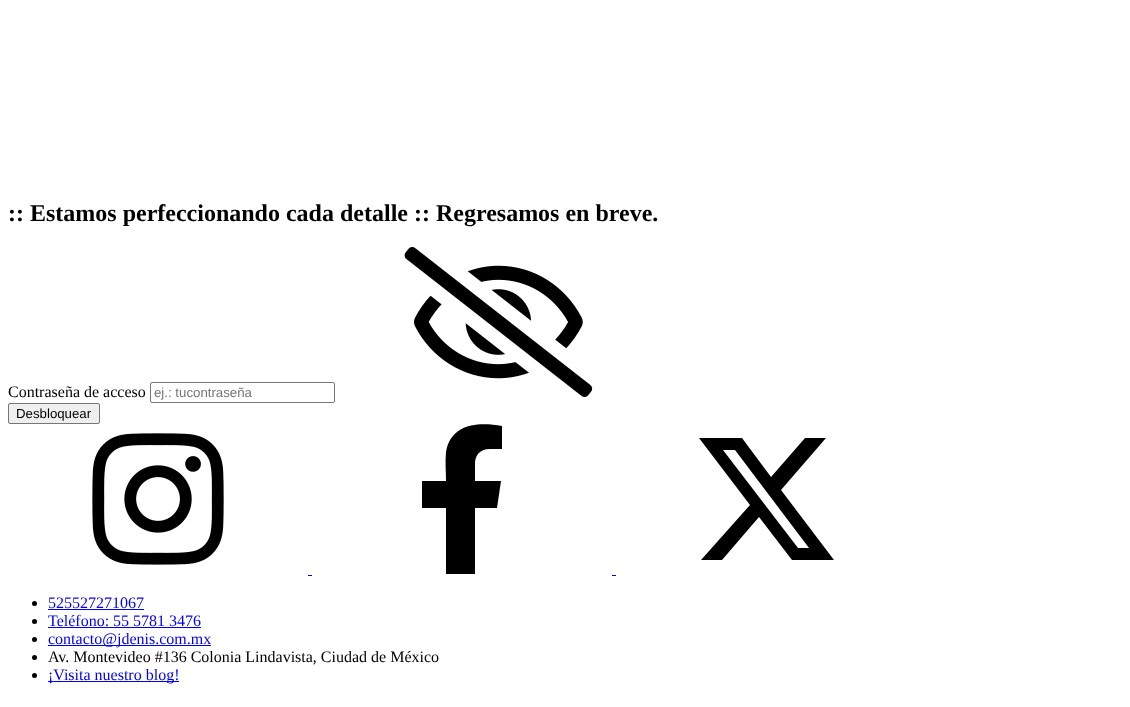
(async () => {
const canvas = document.querySelector("canvas")
canvas.width = 1130
canvas.height = 707
const c = canvas.getContext("2d")
c.miterLimit = 4
c.fontKerning = "normal"
function T(s,x,y){c.fillText(s,x,y)}
function R(x,y,w,h){c.fillRect(x,y,w,h)}
async function I(src,x,y,w,h){const img=new Image();img.src=src;await img.decode();c.drawImage(img,x,y,w,h)}
let path
c.fillStyle="#fff"
R(0,0,1130,707)
c.font="bold 24px Liberation Serif"
c.fillStyle="#000"
T(":: Estamos perfeccionando cada detalle :: Regresamos en breve.",8,221)
c.font="16px Liberation Serif"
T("Contraseña de acceso",8,397)
c.beginPath()
c.roundRect(150.5,382.5,184,20,1.5)
c.strokeStyle="#767676"
c.stroke()
c.font="13.25px Liberation Sans"
c.fillStyle="#757575"
T("ej.: tucontraseña",154,397)
await I("1.png",404,247,189,150)
c.fillStyle="#efefef"
c.beginPath()
c.roundRect(8.5,403.5,91,20,1.5)
c.fill()
c.stroke()
c.fillStyle="#000"
T("Desbloquear",16,418)
await I("2.png",92,433,132,132)
path = new Path2D("M497 508l4-27h-26v-17c0-8 4-15 15-15h12v-23c-23-4-51-3-56 26c-1 10 0 20 0 29h-24v27h24v66h29v-66z")
c.fill(path)
path = new Path2D("M805 438h21l-45 52l53 70h-42l-33-43l-37 43h-21l49-55l-51-67h43l29 39zm-7 110h11l-74-98h-12z")
c.fill(path)
c.fillStyle="#00e"
R(308,575,4,1)
R(612,575,4,1)
c.fillStyle="#000"
c.beginPath()
c.arc(34.5,603.5,2.5,0,7)
c.fill()
c.font="16px Liberation Serif"
c.fillStyle="#00e"
T("525527271067",48,608)
R(48,609,96,1)
c.fillStyle="#000"
c.beginPath()
c.arc(34.5,621.5,2.5,0,7)
c.fill()
c.fillStyle="#00e"
T("Teléfono: 55 5781 3476",48,626)
R(48,627,153,1)
c.fillStyle="#000"
c.beginPath()
c.arc(34.5,639.5,2.5,0,7)
c.fill()
c.fillStyle="#00e"
R(48,645,163,1)
T("contacto@jdenis.com.mx",48,644)
c.fillStyle="#000"
c.beginPath()
c.arc(34.5,657.5,2.5,0,7)
c.fill()
T("Av. Montevideo #136 Colonia Lindavista, Ciudad de México",48,662)
c.beginPath()
c.arc(34.5,675.5,2.5,0,7)
c.fill()
c.fillStyle="#00e"
R(48,681,131,1)
T("¡Visita nuestro blog!",48,680)
})()
